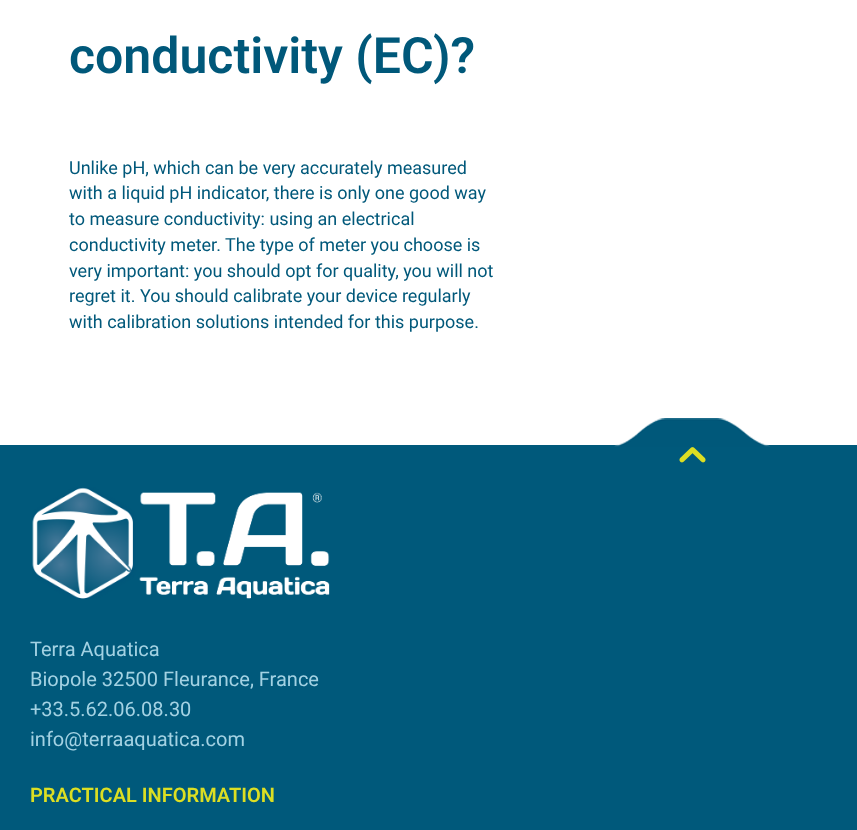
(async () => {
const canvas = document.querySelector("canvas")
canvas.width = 857
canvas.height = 830
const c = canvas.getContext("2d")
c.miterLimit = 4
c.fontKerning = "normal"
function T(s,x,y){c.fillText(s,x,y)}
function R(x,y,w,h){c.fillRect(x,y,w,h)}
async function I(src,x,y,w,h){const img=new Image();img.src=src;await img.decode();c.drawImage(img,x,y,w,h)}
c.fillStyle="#fff"
R(0,0,857,830)
c.font="600 50px Roboto"
c.fillStyle="#00587a"
T("conductivity (EC)?",69,73)
c.font="18px Roboto"
T("Unlike pH, which can be very accurately measured",69,174)
T("with a liquid pH indicator, there is only one good way",69,199)
T("to measure conductivity: using an electrical",69,225)
T("conductivity meter. The type of meter you choose is",69,251)
T("very important: you should opt for quality, you will not",69,277)
T("regret it. You should calibrate your device regularly",69,302)
T("with calibration solutions intended for this purpose.",69,328)
c.fillStyle="#00597b"
R(0,445,857,385)
await I("1.png",614,418,156,29)
await I("2.png",679,447,27,16)
await I("3.png",32,487,298,112)
c.font="20px Roboto"
c.fillStyle="#a3d2e3"
T("Terra Aquatica",30,656)
T("Biopole 32500 Fleurance, France",30,686)
T("+33.5.62.06.08.30",30,716)
T("info@terraaquatica.com",30,746)
c.font="600 20px Roboto"
c.fillStyle="#dcde23"
T("PRACTICAL INFORMATION",30,802)
})()
